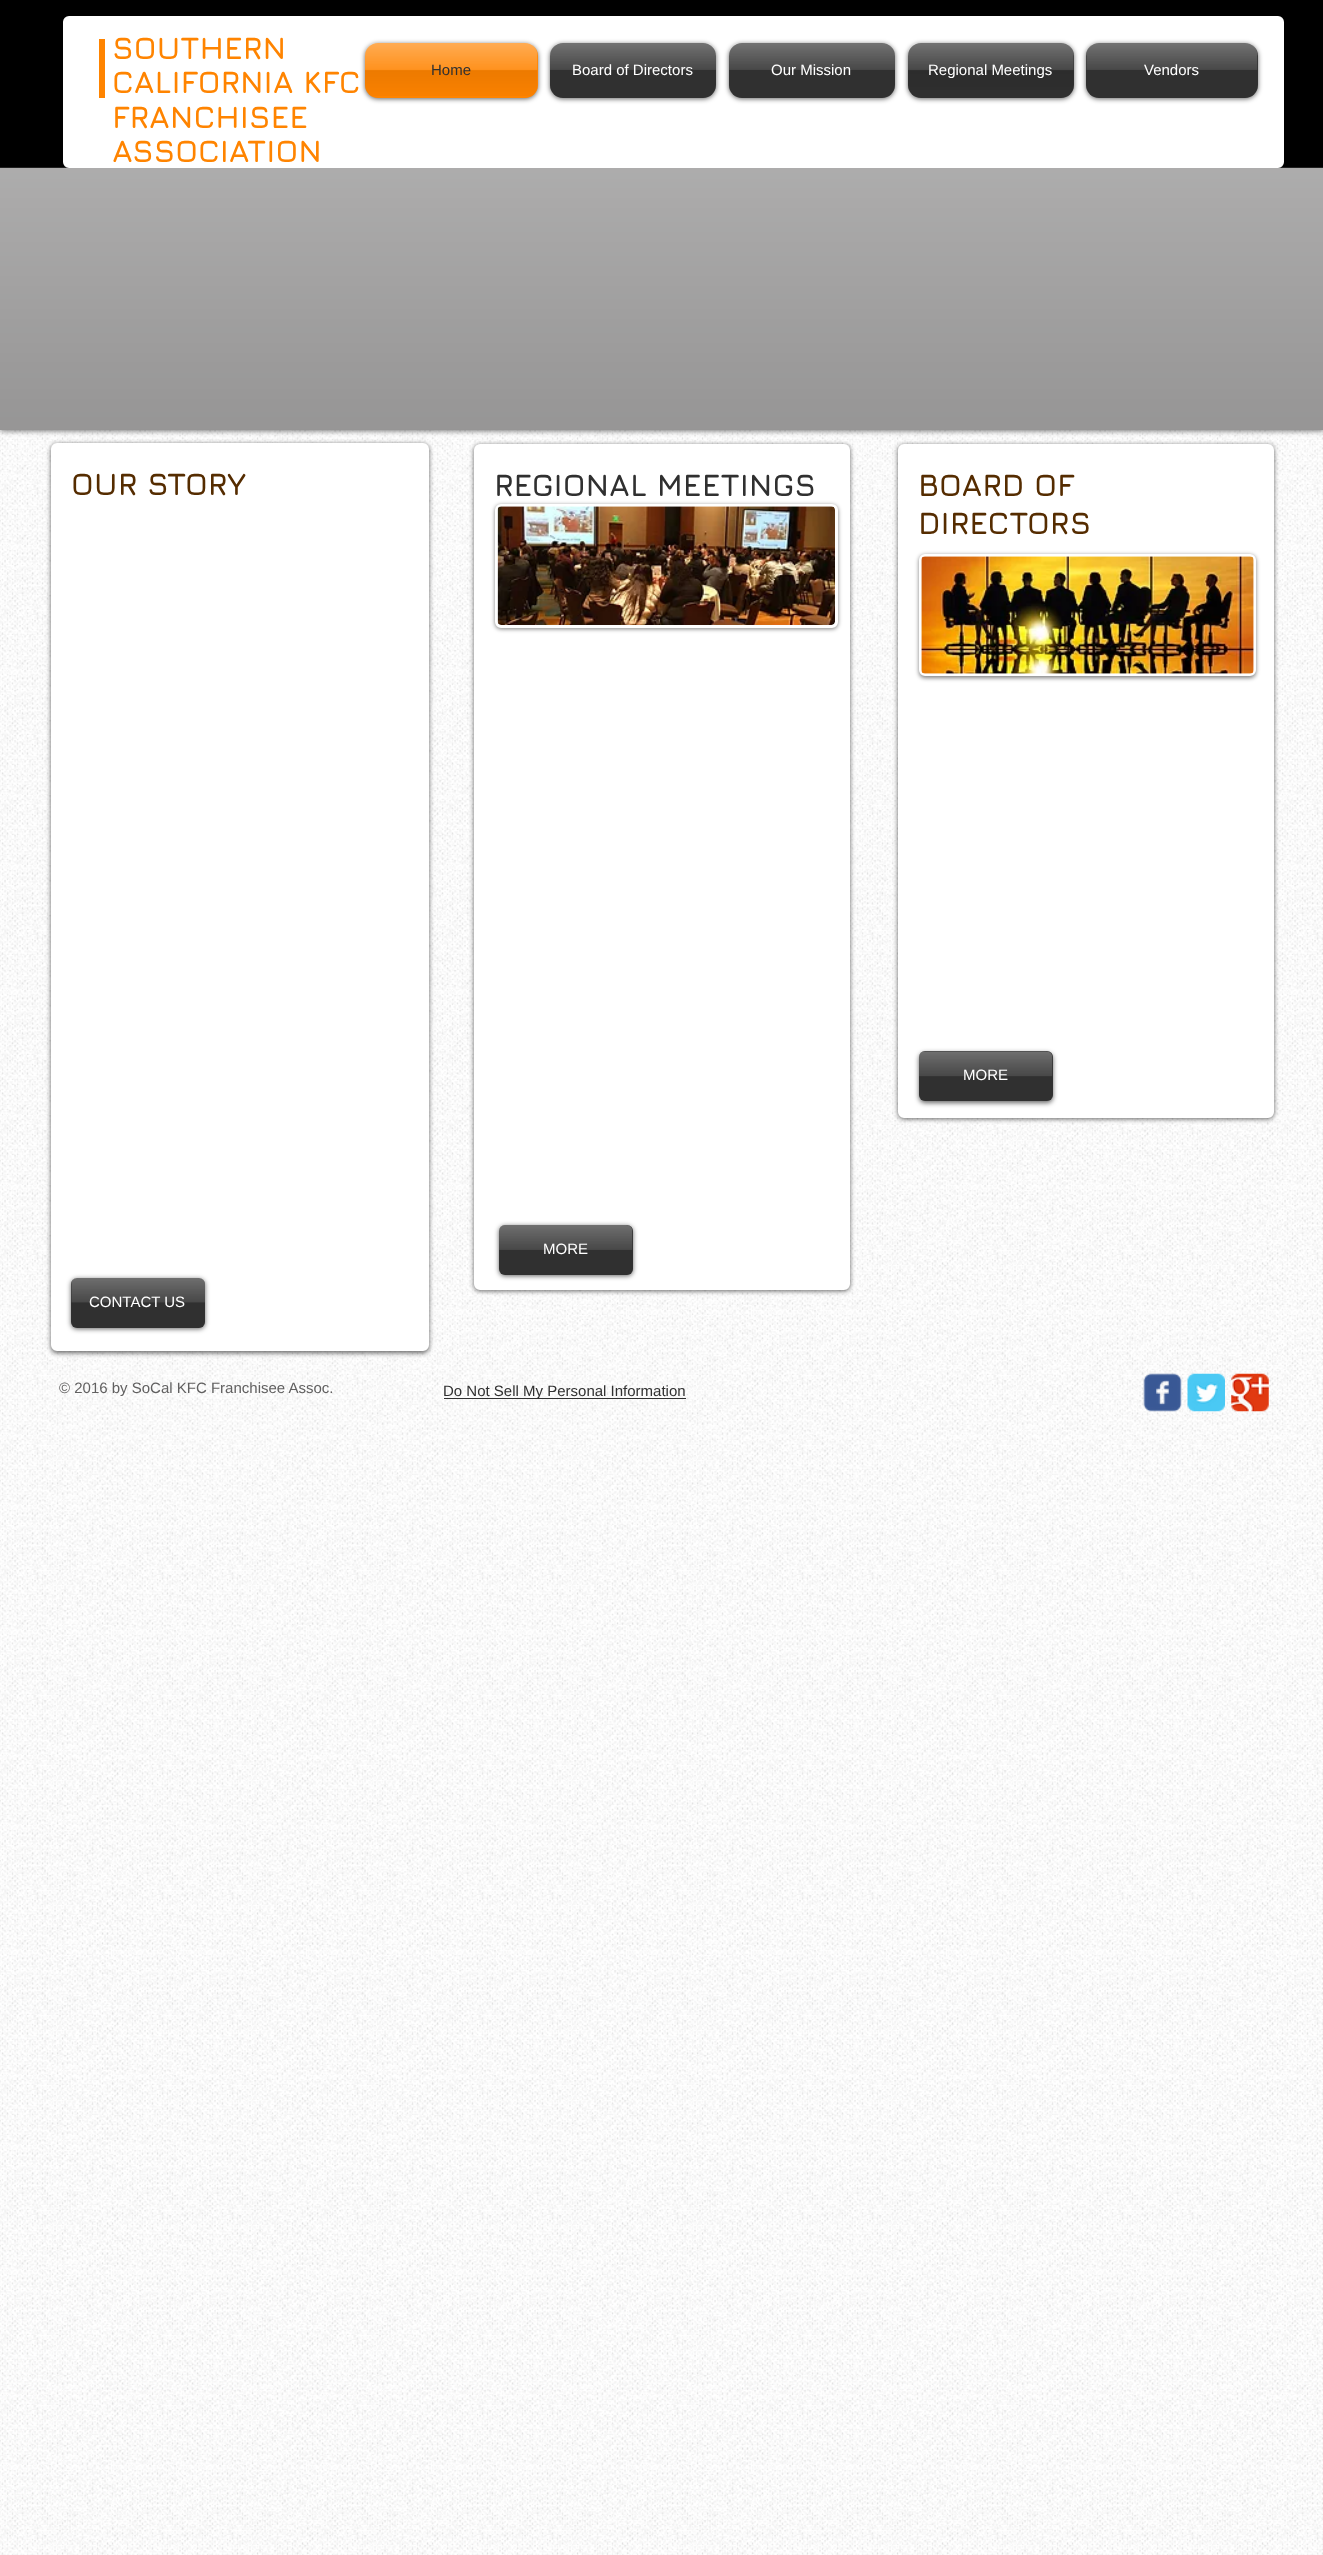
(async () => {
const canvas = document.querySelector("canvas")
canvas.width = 1323
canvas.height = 2555
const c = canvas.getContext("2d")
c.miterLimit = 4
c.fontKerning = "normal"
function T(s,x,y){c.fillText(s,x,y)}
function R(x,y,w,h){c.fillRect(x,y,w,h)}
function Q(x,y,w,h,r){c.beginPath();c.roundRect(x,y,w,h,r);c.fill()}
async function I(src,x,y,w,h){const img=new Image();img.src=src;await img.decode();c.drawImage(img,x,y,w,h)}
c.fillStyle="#fff"
R(0,0,1323,2555)
await I("15.png",0,430,1323,2125)
c.fillStyle="#000000b3"
c.filter="blur(3px)"
c.beginPath()
c.rect(0,0,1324,430)
c.fill()
c.filter="none"
c.fillStyle="#000"
R(0,0,1323,168)
c.fillStyle="#fff"
c.beginPath()
c.roundRect(64.5,17.5,1218,149,4.5)
c.fill()
c.strokeStyle="#fff"
c.lineWidth=3
c.stroke()
c.fillStyle="#ff8400"
R(99,39,6,59)
c.font="bold 31.25px Jura"
T("SOUTHERN",112,59)
T("CALIFORNIA KFC",112,93)
T("FRANCHISEE",112,128)
T("ASSOCIATION",112,162)
c.fillStyle="#00000099"
c.filter="blur(2.5px)"
c.beginPath()
c.roundRect(365,44,173,55,13)
c.fill()
c.filter="none"
c.fillStyle="#ff8400"
Q(365,43,173,55,13)
await I("1.png",365,43,173,53)
c.font="15px Liberation Sans"
c.fillStyle="#303030"
T("Home",431,75)
c.fillStyle="#00000099"
c.filter="blur(2.5px)"
c.beginPath()
c.roundRect(550,44,166,55,13)
c.fill()
c.filter="none"
c.fillStyle="#303030"
Q(550,43,166,55,13)
await I("2.png",550,43,166,27)
c.fillStyle="#fff"
T("Board of Directors",572,75)
c.fillStyle="#00000099"
c.filter="blur(2.5px)"
c.beginPath()
c.roundRect(729,44,166,55,13)
c.fill()
c.filter="none"
c.fillStyle="#303030"
Q(729,43,166,55,13)
await I("3.png",729,43,166,27)
c.fillStyle="#fff"
T("Our Mission",771,75)
c.fillStyle="#00000099"
c.filter="blur(2.5px)"
c.beginPath()
c.roundRect(908,44,166,55,13)
c.fill()
c.filter="none"
c.fillStyle="#303030"
Q(908,43,166,55,13)
await I("4.png",908,43,166,47)
c.fillStyle="#fff"
T("Regional Meetings",928,75)
c.fillStyle="#00000099"
c.filter="blur(2.5px)"
c.beginPath()
c.roundRect(1086,44,172,55,13)
c.fill()
c.filter="none"
c.fillStyle="#303030"
Q(1086,43,172,55,13)
await I("5.png",1086,43,172,27)
c.fillStyle="#fff"
T("Vendors",1144,75)
c.fillStyle="#919090"
R(0,168,1323,262)
await I("6.png",0,167,1323,263)
c.fillStyle="#00000099"
c.filter="blur(2.5px)"
c.beginPath()
c.roundRect(51,444,378,909,6)
c.fill()
c.filter="none"
c.fillStyle="#fff"
c.beginPath()
c.roundRect(52.5,444.5,375,905,4.5)
c.fill()
c.stroke()
c.font="bold 31.25px Jura"
c.fillStyle="#552c00"
T("OUR STORY",71,495)
c.fillStyle="#00000099"
c.filter="blur(2.5px)"
c.beginPath()
c.roundRect(71,1279,134,50,6)
c.fill()
c.filter="none"
c.fillStyle="#303030"
Q(71,1278,134,50,6)
await I("7.png",71,1278,134,25)
c.font="15px Liberation Sans"
c.fillStyle="#fff"
T("CONTACT US",89,1307)
c.fillStyle="#00000099"
c.filter="blur(2.5px)"
c.beginPath()
c.roundRect(474,445,376,846,6)
c.fill()
c.filter="none"
c.fillStyle="#fff"
c.beginPath()
c.roundRect(475.5,445.5,373,843,4.5)
c.fill()
c.stroke()
c.font="bold 31.25px Jura"
c.fillStyle="#303030"
T("REGIONAL MEETINGS",494,496)
c.fillStyle="#00000080"
c.filter="blur(2px)"
c.beginPath()
c.roundRect(495,505,343,124,6)
c.fill()
c.filter="none"
c.fillStyle="#fff"
c.beginPath()
c.roundRect(496.5,505.5,340,121,4.5)
c.fill()
c.stroke()
await I("8.png",497,506,338,119)
c.fillStyle="#00000099"
c.filter="blur(2.5px)"
c.beginPath()
c.roundRect(499,1226,134,50,6)
c.fill()
c.filter="none"
c.fillStyle="#303030"
Q(499,1225,134,50,6)
await I("9.png",499,1225,134,25)
c.font="15px Liberation Sans"
c.fillStyle="#fff"
T("MORE",543,1254)
c.fillStyle="#00000099"
c.filter="blur(2.5px)"
c.beginPath()
c.roundRect(898,445,376,674,6)
c.fill()
c.filter="none"
c.fillStyle="#fff"
c.beginPath()
c.roundRect(899.5,445.5,373,671,4.5)
c.fill()
c.stroke()
c.font="bold 31.25px Jura"
c.fillStyle="#552c00"
T("BOARD OF",918,496)
T("DIRECTORS",918,534)
c.fillStyle="#00000080"
c.filter="blur(2px)"
c.beginPath()
c.roundRect(919,555,337,123,6)
c.fill()
c.filter="none"
c.beginPath()
c.roundRect(920.5,555.5,334,119,4.5)
c.stroke()
await I("10.png",921,556,333,118)
c.fillStyle="#00000099"
c.filter="blur(2.5px)"
c.beginPath()
c.roundRect(919,1053,134,50,6)
c.fill()
c.filter="none"
c.fillStyle="#303030"
Q(919,1051,134,50,6)
await I("11.png",919,1051,134,26)
c.font="15px Liberation Sans"
c.fillStyle="#fff"
T("MORE",963,1080)
c.fillStyle="#616060"
T("© 2016 by SoCal KFC Franchisee Assoc.",59,1393)
c.fillStyle="#303030"
R(444,1398,242,1)
T("Do Not Sell My Personal Information",443,1396)
await I("12.png",1143,1373,39,39)
await I("13.png",1187,1373,38,39)
await I("14.png",1231,1373,38,39)
})()
